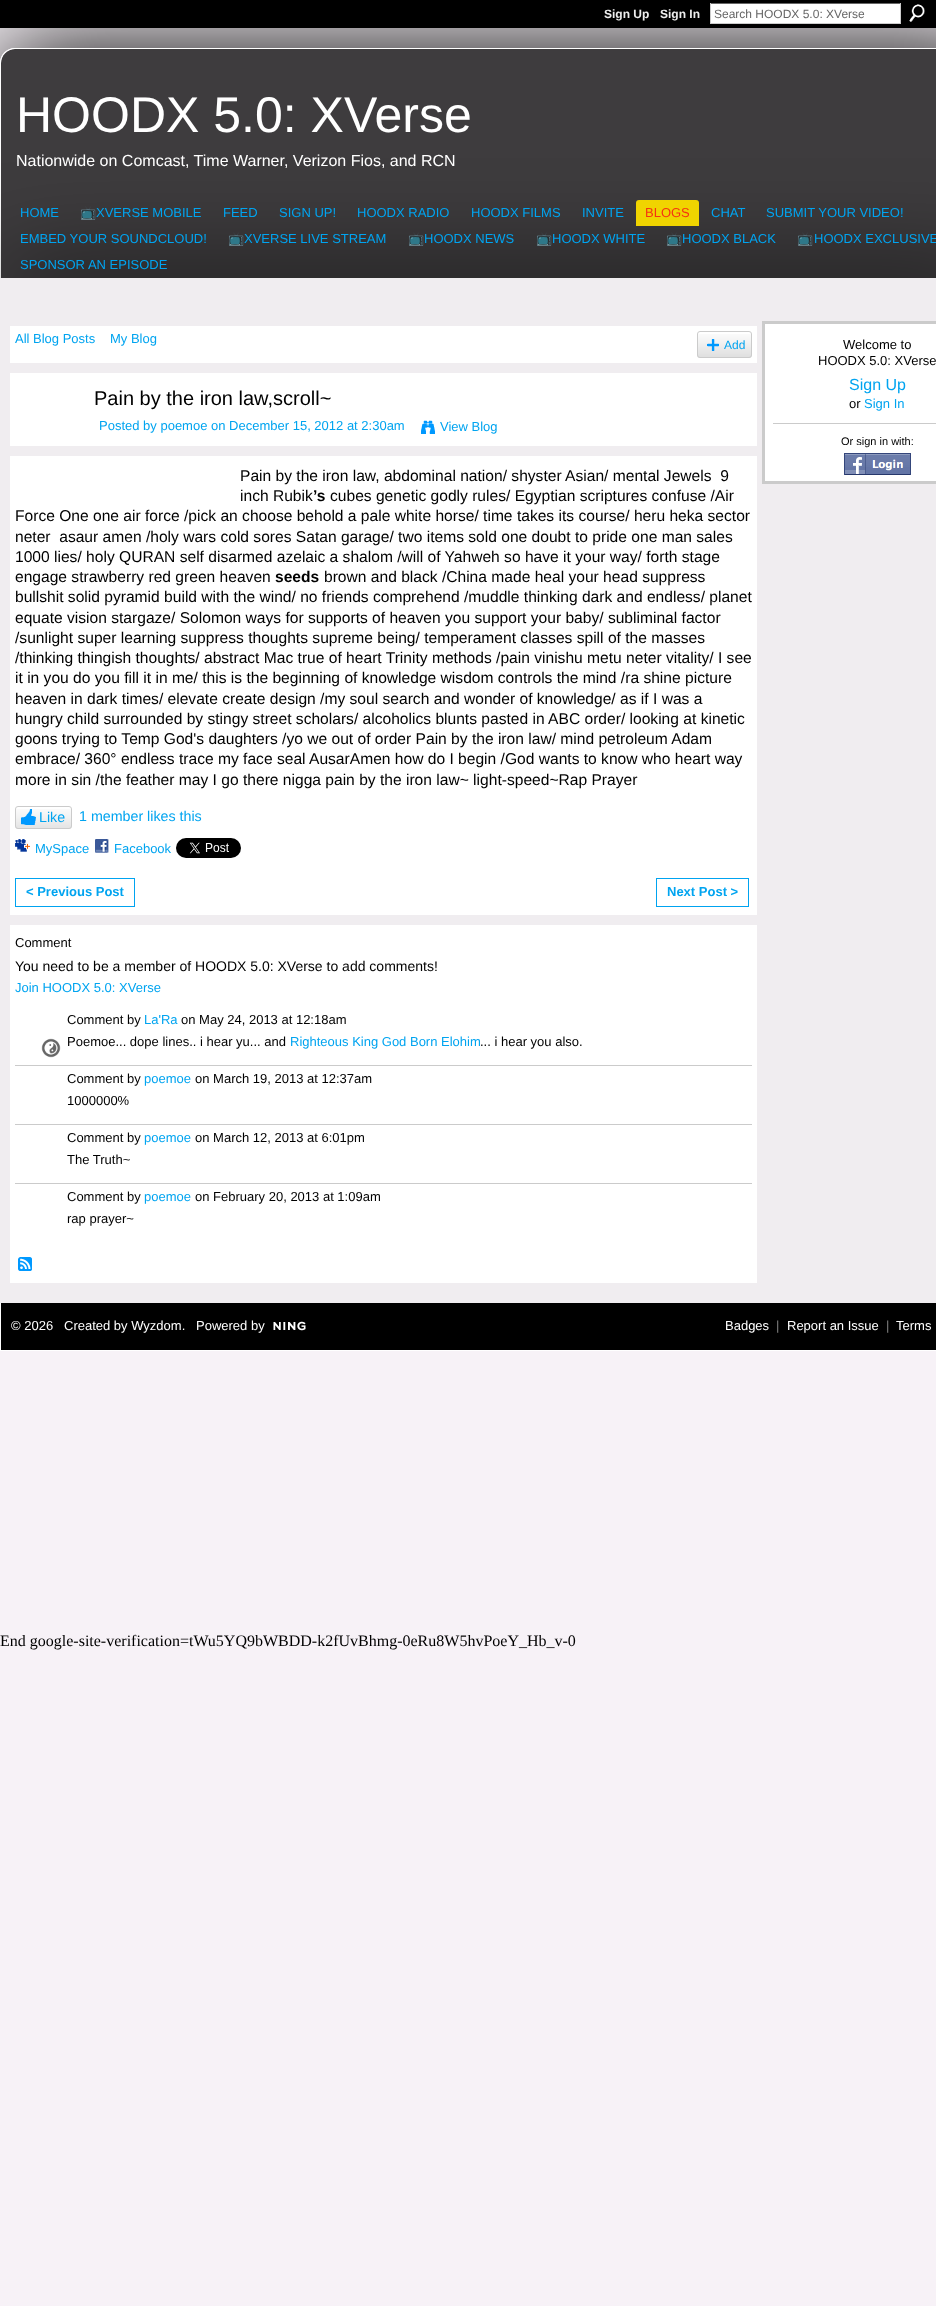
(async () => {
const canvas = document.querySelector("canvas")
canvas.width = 936
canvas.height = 2306
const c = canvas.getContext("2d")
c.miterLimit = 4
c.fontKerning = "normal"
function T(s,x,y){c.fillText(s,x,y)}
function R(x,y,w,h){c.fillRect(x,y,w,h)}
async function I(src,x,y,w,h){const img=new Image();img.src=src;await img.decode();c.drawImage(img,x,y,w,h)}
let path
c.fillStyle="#f7f2f7"
R(0,0,936,2306)
c.fillStyle="#000"
R(0,0,936,28)
c.save()
path = new Path2D("M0 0h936v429h-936zm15 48h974c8.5 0 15 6.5 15 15v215h-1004v-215c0-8.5 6.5-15 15-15z")
c.clip(path,"evenodd")
c.filter="blur(50px)"
c.beginPath()
c.roundRect(0,48,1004,230,15)
c.fill()
c.filter="none"
c.restore()
c.font="bold 12px Liberation Sans"
c.fillStyle="#eee"
T("Sign Up",604,18)
T("Sign In",660,18)
c.fillStyle="#fff"
R(711,4,189,19)
c.fillStyle="#666"
R(710,3,191,1)
c.fillStyle="#ccc"
R(900,3,1,21)
R(710,23,191,1)
R(710,3,1,21)
c.font="12px Liberation Sans"
c.fillStyle="#666"
T("Search HOODX 5.0: XVerse",714,18)
await I("1.png",909,4,16,18)
c.fillStyle="#3e3c3e"
path = new Path2D("M15 49h921c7.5 0 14 6.5 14 14v215h-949v-215c0-7.5 6.5-14 14-14z")
c.fill(path)
c.fillStyle="#fff"
path = new Path2D("M15 48h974c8 0 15 7 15 15v215h-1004v-215c0-8 7-15 15-15zm0 1h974c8 0 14 6 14 14v215h-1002v-215c0-8 6-14 14-14z")
c.fill(path,"evenodd")
c.fillStyle="#000"
c.filter="blur(50px)"
c.beginPath()
c.rect(0,278,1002,33)
c.fill()
c.filter="none"
c.font="50px Liberation Sans"
c.fillStyle="#fff"
T("HOODX 5.0: XVerse",16,132)
c.font="16px Liberation Sans"
T("Nationwide on Comcast, Time Warner, Verizon Fios, and RCN",16,166)
c.font="13px Liberation Sans"
c.fillStyle="#00a4f0"
T("HOME",20,217)
c.font="13px Noto Color Emoji"
T("📺",80,217)
c.font="13px Liberation Sans"
T("XVERSE MOBILE",96,217)
T("FEED",223,217)
T("SIGN UP!",279,217)
T("HOODX RADIO",357,217)
T("HOODX FILMS",471,217)
T("INVITE",582,217)
c.fillStyle="#f0d400"
c.beginPath()
c.roundRect(636,200,63,26,[3,3,0,0])
c.fill()
c.fillStyle="#f53311"
T("BLOGS",645,217)
c.fillStyle="#00a4f0"
T("CHAT",711,217)
T("SUBMIT YOUR VIDEO!",766,217)
T("EMBED YOUR SOUNDCLOUD!",20,243)
c.font="13px Noto Color Emoji"
T("📺",228,243)
c.font="13px Liberation Sans"
T("XVERSE LIVE STREAM",244,243)
c.font="13px Noto Color Emoji"
T("📺",408,243)
c.font="13px Liberation Sans"
T("HOODX NEWS",424,243)
c.font="13px Noto Color Emoji"
T("📺",536,243)
c.font="13px Liberation Sans"
T("HOODX WHITE",552,243)
c.font="13px Noto Color Emoji"
T("📺",666,243)
c.font="13px Liberation Sans"
T("HOODX BLACK",682,243)
c.font="13px Noto Color Emoji"
T("📺",797,243)
c.font="13px Liberation Sans"
T("HOODX EXCLUSIVE",814,243)
T("SPONSOR AN EPISODE",20,269)
c.fillStyle="#f0edf0"
R(0,278,936,1025)
c.fillStyle="#fff"
R(10,326,747,37)
c.fillStyle="#00a4f0"
T("All Blog Posts",15,343)
T("My Blog",110,343)
await I("2.png",697,334,55,24)
c.beginPath()
c.roundRect(697.5,331.5,54,26,2.5)
c.strokeStyle="#cbcbcb"
c.stroke()
await I("3.png",707,339,12,12)
c.font="12px Liberation Sans"
T("Add",724,349)
c.fillStyle="#fff"
R(10,373,747,73)
c.font="20px Liberation Sans"
c.fillStyle="#000"
T("Pain by the iron law,scroll~",94,405)
c.font="13px Liberation Sans"
c.fillStyle="#00a4f0"
T("Posted by poemoe on December 15, 2012 at 2:30am",99,430)
await I("4.png",421,420,14,14)
T("View Blog",440,431)
c.fillStyle="#fff"
R(10,456,747,459)
c.font="15.6px Liberation Sans"
c.fillStyle="#000"
T("Pain by the iron law, abdominal nation/ shyster Asian/ mental Jewels  9",240,481)
T("inch Rubik",240,501)
c.font="bold 15.6px Liberation Sans"
T("’s",313,501)
c.font="15.6px Liberation Sans"
T("cubes genetic godly rules/ Egyptian scriptures confuse /Air",330,501)
T("Force One one air force /pick an choose behold a pale white horse/ time takes its course/ heru heka sector",15,521)
T("neter  asaur amen /holy wars cold sores Satan garage/ two items sold one doubt to pride one man sales",15,542)
T("1000 lies/ holy QURAN self disarmed azelaic a shalom /will of Yahweh so have it your way/ forth stage",15,562)
T("engage strawberry red green heaven",15,582)
c.font="bold 15.6px Liberation Sans"
T("seeds",275,582)
c.font="15.6px Liberation Sans"
T("brown and black /China made heal your head suppress",324,582)
T("bullshit solid pyramid build with the wind/ no friends comprehend /muddle thinking dark and endless/ planet",15,602)
T("equate vision stargaze/ Solomon ways for supports of heaven you support your baby/ subliminal factor",15,623)
T("/sunlight super learning suppress thoughts supreme being/ temperament classes spill of the masses",15,643)
T("/thinking thingish thoughts/ abstract Mac true of heart Trinity methods /pain vinishu metu neter vitality/ I see",15,663)
T("it in you do you fill it in me/ this is the beginning of knowledge wisdom controls the mind /ra shine picture",15,683)
T("heaven in dark times/ elevate create design /my soul search and wonder of knowledge/ as if I was a",15,704)
T("hungry child surrounded by stingy street scholars/ alcoholics blunts pasted in ABC order/ looking at kinetic",15,724)
T("goons trying to Temp God's daughters /yo we out of order Pain by the iron law/ mind petroleum Adam",15,744)
T("embrace/ 360° endless trace my face seal AusarAmen how do I begin /God wants to know who heart way",15,764)
T("more in sin /the feather may I go there nigga pain by the iron law~ light-speed~Rap Prayer",15,785)
await I("5.png",15,809,57,20)
c.beginPath()
c.roundRect(15.5,806.5,56,22,2.5)
c.stroke()
await I("6.png",21,809,15,16)
c.font="14.25px Liberation Sans"
c.fillStyle="#00a4f0"
T("Like",39,822)
T("1 member likes this",79,821)
await I("7.png",15,839,15,13)
c.font="13px Liberation Sans"
T("MySpace",35,853)
await I("8.png",95,839,14,14)
T("Facebook",114,853)
await I("9.png",176,838,65,20)
c.strokeStyle="#00a3f0"
c.strokeRect(15.5,878.5,119,28)
c.font="bold 13px Liberation Sans"
T("< Previous Post",26,896)
c.strokeRect(656.5,878.5,92,28)
T("Next Post >",667,896)
c.fillStyle="#fff"
R(10,925,747,322)
c.font="13px Liberation Sans"
c.fillStyle="#000"
T("Comment",15,947)
c.font="14px Liberation Sans"
T("You need to be a member of HOODX 5.0: XVerse to add comments!",15,971)
c.font="13px Liberation Sans"
c.fillStyle="#00a4f0"
T("Join HOODX 5.0: XVerse",15,992)
c.fillStyle="#cbcbcb"
R(15,1065,737,1)
c.fillStyle="#000"
T("Comment by",67,1024)
c.fillStyle="#00a4f0"
T("La'Ra",144,1024)
c.fillStyle="#000"
T("on May 24, 2013 at 12:18am",181,1024)
await I("10.png",41,1038,20,20)
T("Poemoe... dope lines.. i hear yu... and",67,1046)
c.fillStyle="#00a4f0"
T("Righteous King God Born Elohim",290,1046)
c.fillStyle="#000"
T("... i hear you also.",480,1046)
c.fillStyle="#cbcbcb"
R(15,1124,737,1)
c.fillStyle="#000"
T("Comment by",67,1083)
c.fillStyle="#00a4f0"
T("poemoe",144,1083)
c.fillStyle="#000"
T("on March 19, 2013 at 12:37am",195,1083)
T("1000000%",67,1105)
c.fillStyle="#cbcbcb"
R(15,1183,737,1)
c.fillStyle="#000"
T("Comment by",67,1142)
c.fillStyle="#00a4f0"
T("poemoe",144,1142)
c.fillStyle="#000"
T("on March 12, 2013 at 6:01pm",195,1142)
T("The Truth~",67,1164)
T("Comment by",67,1201)
c.fillStyle="#00a4f0"
T("poemoe",144,1201)
c.fillStyle="#000"
T("on February 20, 2013 at 1:09am",195,1201)
T("rap prayer~",67,1223)
c.fillStyle="#fff"
R(10,1247,747,36)
await I("11.png",18,1257,14,14)
c.beginPath()
c.rect(763.5,322.5,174,160)
c.fill()
c.strokeStyle="#cbcbcb"
c.lineWidth=3
c.stroke()
c.fillStyle="#000"
T("Welcome to",843,349)
T("HOODX 5.0: XVerse",818,365)
c.font="16px Liberation Sans"
c.fillStyle="#00a4f0"
T("Sign Up",849,390)
c.font="13px Liberation Sans"
c.fillStyle="#000"
T("or",849,408)
c.fillStyle="#00a4f0"
T("Sign In",864,408)
c.fillStyle="#cbcbcb"
R(773,423,163,1)
c.font="11px Liberation Sans"
c.fillStyle="#000"
T("Or sign in with:",841,445)
await I("12.png",844,453,67,22)
R(1,1303,935,47)
c.fillStyle="#fff"
R(0,1350,936,1)
R(0,1303,1,48)
c.font="13px Liberation Sans"
T("© 2026",11,1330)
T("Created by Wyzdom.",64,1330)
T("Powered by",196,1330)
await I("13.png",273,1321,33,10)
T("Badges",725,1330)
c.fillStyle="#7f7f7f"
T("|",776,1330)
c.fillStyle="#fff"
T("Report an Issue",787,1330)
c.fillStyle="#7f7f7f"
T("|",886,1330)
c.fillStyle="#fff"
T("Terms",896,1330)
c.font="16px Liberation Serif"
c.fillStyle="#000"
T("End google-site-verification=tWu5YQ9bWBDD-k2fUvBhmg-0eRu8W5hvPoeY_Hb_v-0",0,1646)
})()
